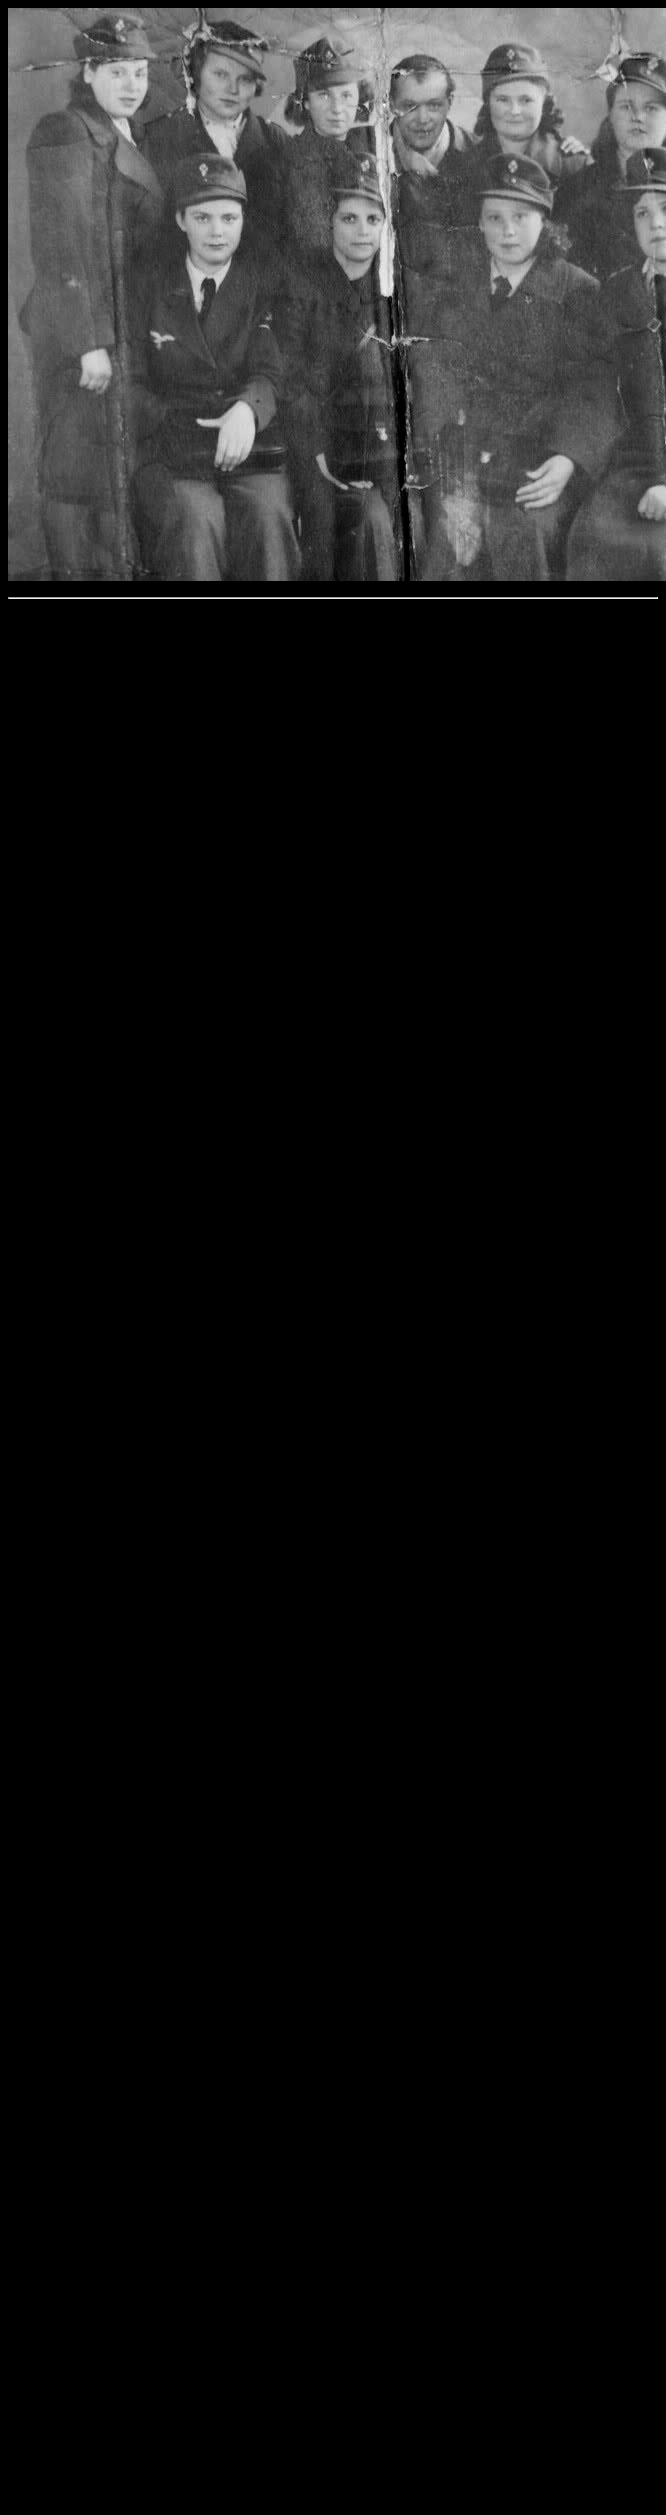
(async () => {
const canvas = document.querySelector("canvas")
canvas.width = 666
canvas.height = 2515
const c = canvas.getContext("2d")
c.miterLimit = 4
c.fontKerning = "normal"
function R(x,y,w,h){c.fillRect(x,y,w,h)}
async function I(src,x,y,w,h){const img=new Image();img.src=src;await img.decode();c.drawImage(img,x,y,w,h)}
c.fillStyle="#000"
R(0,0,666,2515)
await I("1.png",8,8,658,573)
c.fillStyle="#9f9f9f"
R(8,597,650,1)
c.fillStyle="#eee"
R(657,597,1,2)
R(8,598,650,1)
c.fillStyle="#9f9f9f"
R(8,597,1,2)
})()
